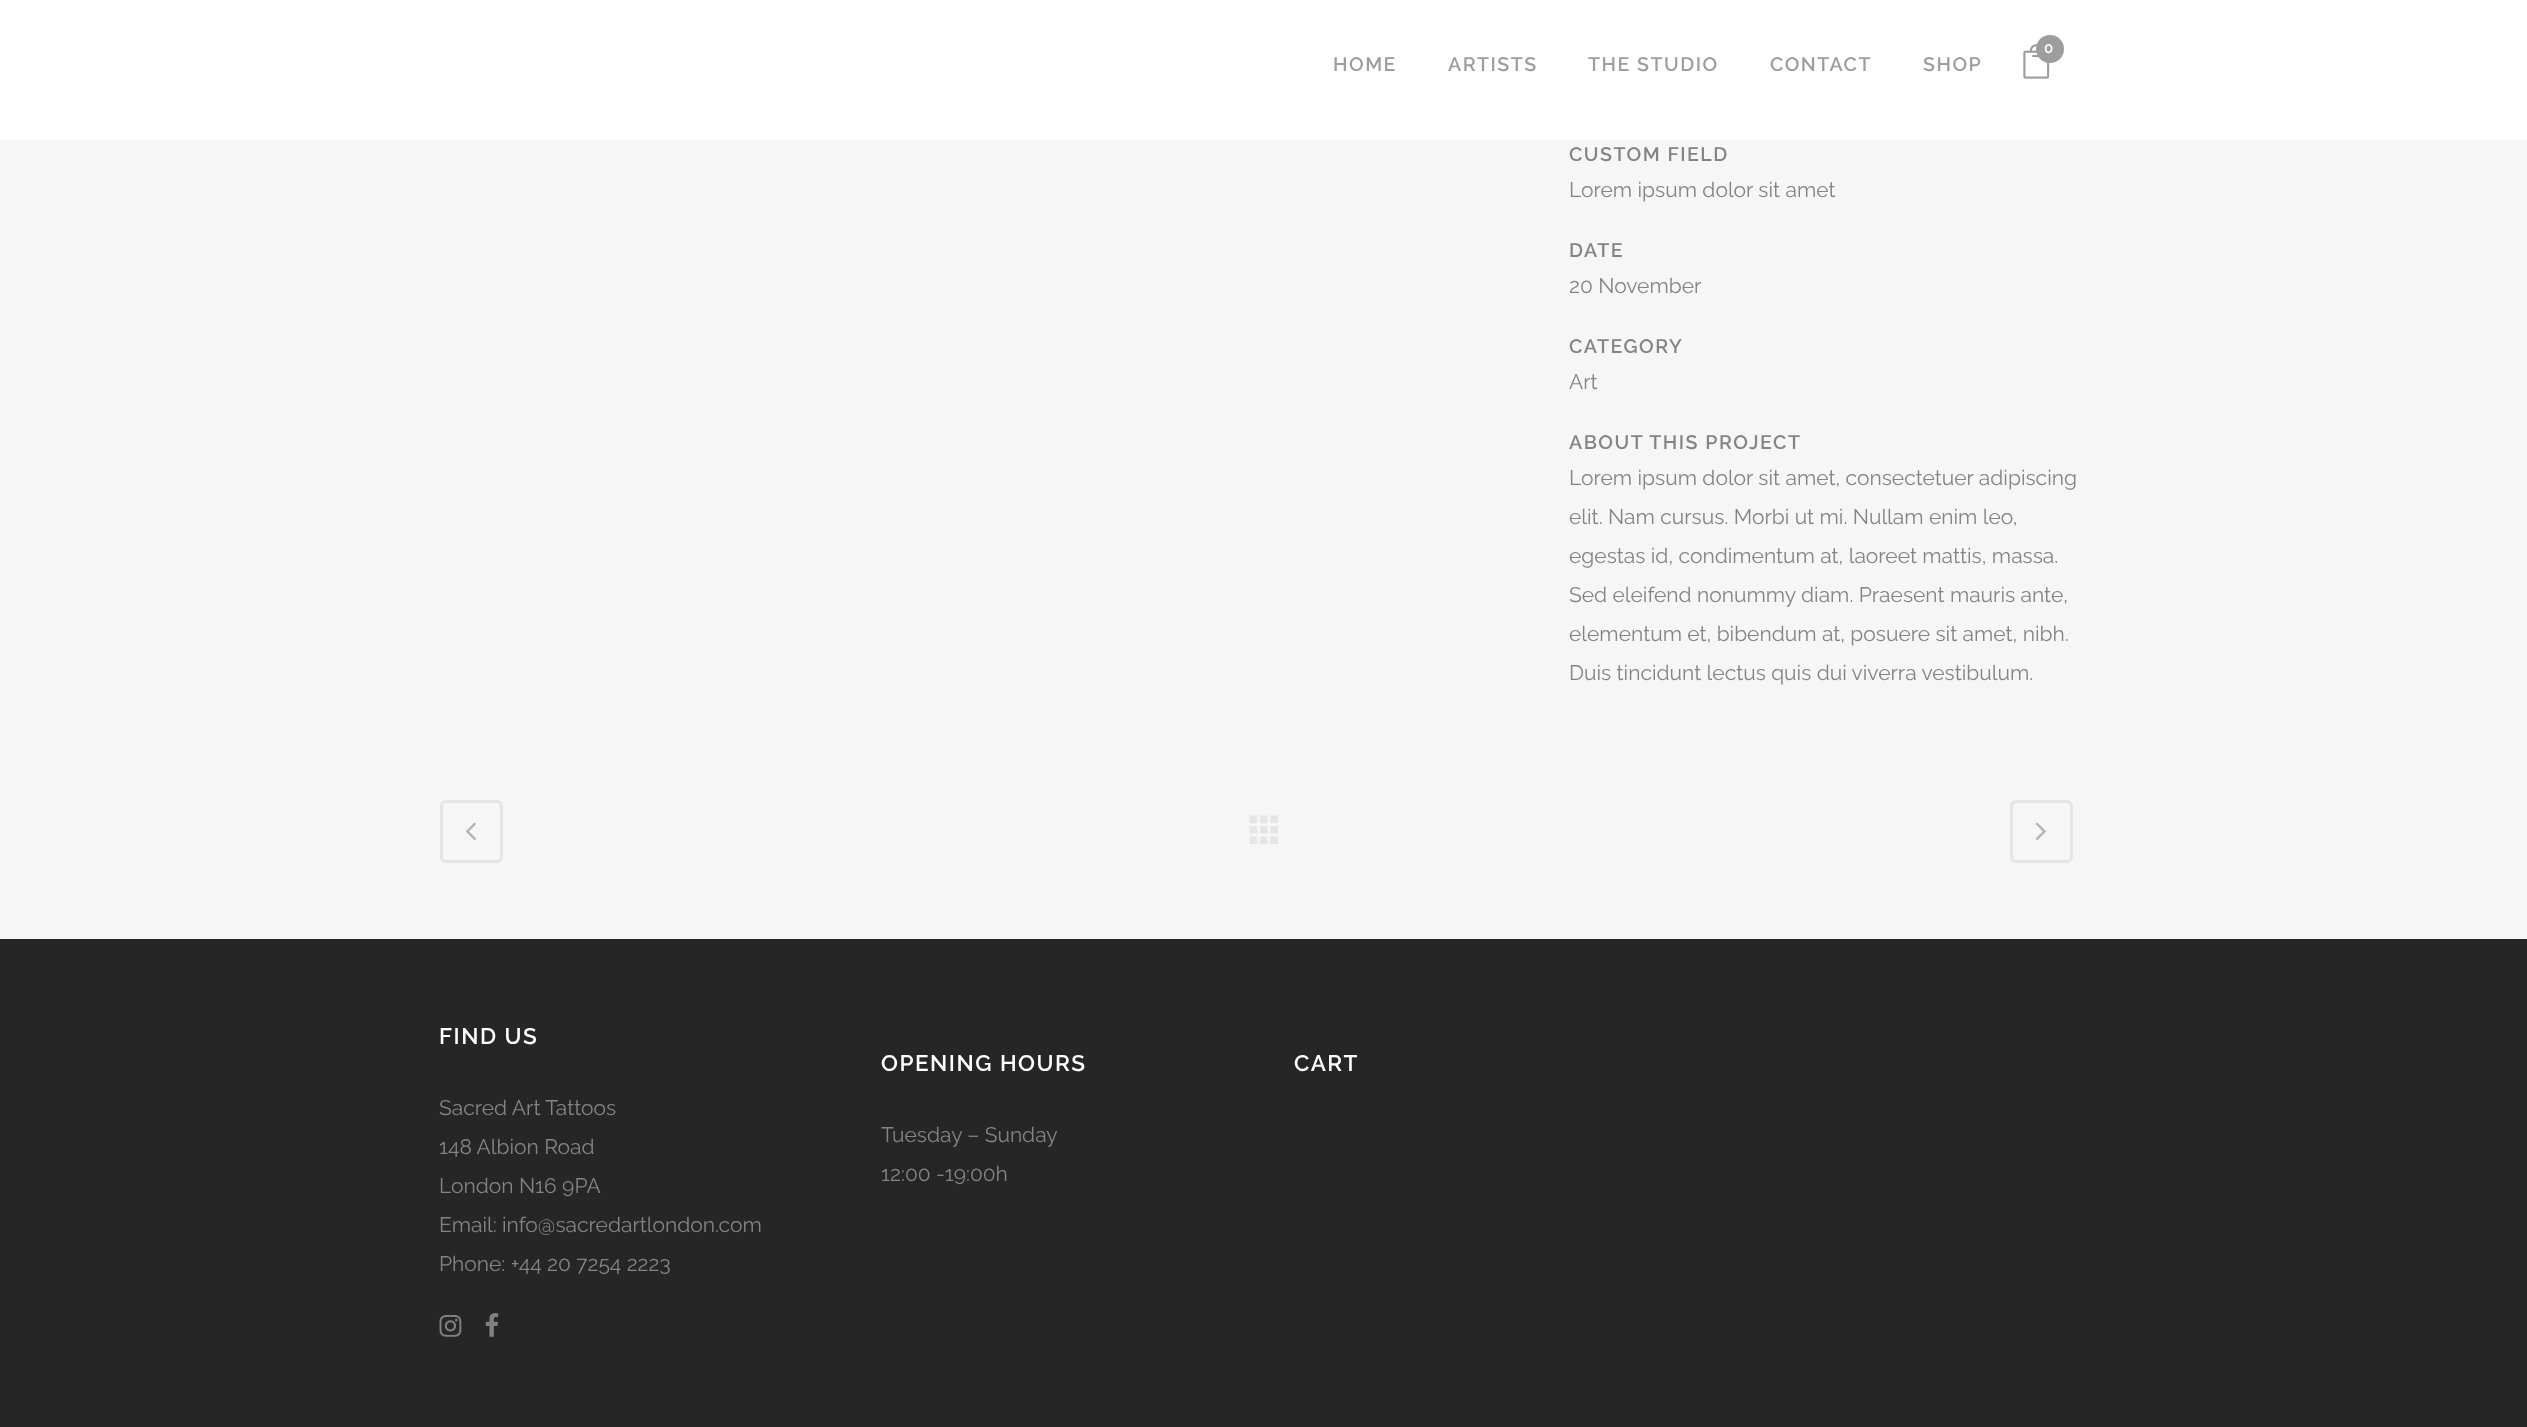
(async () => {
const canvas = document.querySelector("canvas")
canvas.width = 2527
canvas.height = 1427
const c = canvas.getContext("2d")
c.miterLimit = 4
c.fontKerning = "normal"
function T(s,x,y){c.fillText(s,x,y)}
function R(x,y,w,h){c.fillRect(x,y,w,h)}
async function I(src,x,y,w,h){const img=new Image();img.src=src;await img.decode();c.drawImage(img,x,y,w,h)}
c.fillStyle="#f6f6f6"
R(0,0,2527,1427)
c.fillStyle="#fff"
R(0,0,2527,140)
await I("1.png",2023,44,27,35)
c.fillStyle="#9d9d9d"
c.beginPath()
c.arc(2050,49,14,0,7)
c.fill()
c.font="600 15px Raleway"
c.fillStyle="#fff"
T("0",2044,53)
c.letterSpacing="1.5px"
c.font="600 19.5px Raleway"
c.fillStyle="#9d9d9d"
T("HOME",1333,71)
T("ARTISTS",1448,71)
T("THE STUDIO",1588,71)
T("CONTACT",1770,71)
T("SHOP",1923,71)
c.fillStyle="#848484"
T("CUSTOM FIELD",1569,161)
c.letterSpacing="0px"
c.font="21px Raleway"
T("Lorem ipsum dolor sit amet",1569,197)
c.letterSpacing="1.5px"
c.font="600 19.5px Raleway"
T("DATE",1569,257)
c.letterSpacing="0px"
c.font="21px Raleway"
T("20 November",1569,293)
c.letterSpacing="1.5px"
c.font="600 19.5px Raleway"
T("CATEGORY",1569,353)
c.letterSpacing="0px"
c.font="21px Raleway"
T("Art",1569,389)
c.letterSpacing="1.5px"
c.font="600 19.5px Raleway"
T("ABOUT THIS PROJECT",1569,449)
c.letterSpacing="0px"
c.font="21px Raleway"
T("Lorem ipsum dolor sit amet, consectetuer adipiscing",1569,485)
T("elit. Nam cursus. Morbi ut mi. Nullam enim leo,",1569,524)
T("egestas id, condimentum at, laoreet mattis, massa.",1569,563)
T("Sed eleifend nonummy diam. Praesent mauris ante,",1569,602)
T("elementum et, bibendum at, posuere sit amet, nibh.",1569,641)
T("Duis tincidunt lectus quis dui viverra vestibulum.",1569,680)
c.beginPath()
c.roundRect(441.5,801.5,60,60,4.5)
c.strokeStyle="#e5e5e5"
c.lineWidth=3
c.stroke()
await I("2.png",465,822,11,18)
await I("3.png",1249,815,29,29)
c.beginPath()
c.roundRect(2011.5,801.5,60,60,4.5)
c.stroke()
await I("4.png",2035,822,11,18)
c.fillStyle="#262626"
R(0,939,2527,488)
c.letterSpacing="1.5px"
c.font="600 22.5px Raleway"
c.fillStyle="#fff"
T("FIND US",439,1044)
c.letterSpacing="0px"
c.font="21px Raleway"
c.fillStyle="#848484"
T("Sacred Art Tattoos",439,1115)
T("148 Albion Road",439,1154)
T("London N16 9PA",439,1193)
T("Email: info@sacredartlondon.com",439,1232)
T("Phone: +44 20 7254 2223",439,1271)
await I("5.png",439,1315,23,22)
await I("6.png",485,1313,14,24)
c.letterSpacing="1.5px"
c.font="600 22.5px Raleway"
c.fillStyle="#fff"
T("OPENING HOURS",881,1071)
c.letterSpacing="0px"
c.font="21px Raleway"
c.fillStyle="#848484"
T("Tuesday – Sunday",881,1142)
T("12:00 -19:00h",881,1181)
c.letterSpacing="1.5px"
c.font="600 22.5px Raleway"
c.fillStyle="#fff"
T("CART",1294,1071)
})()
